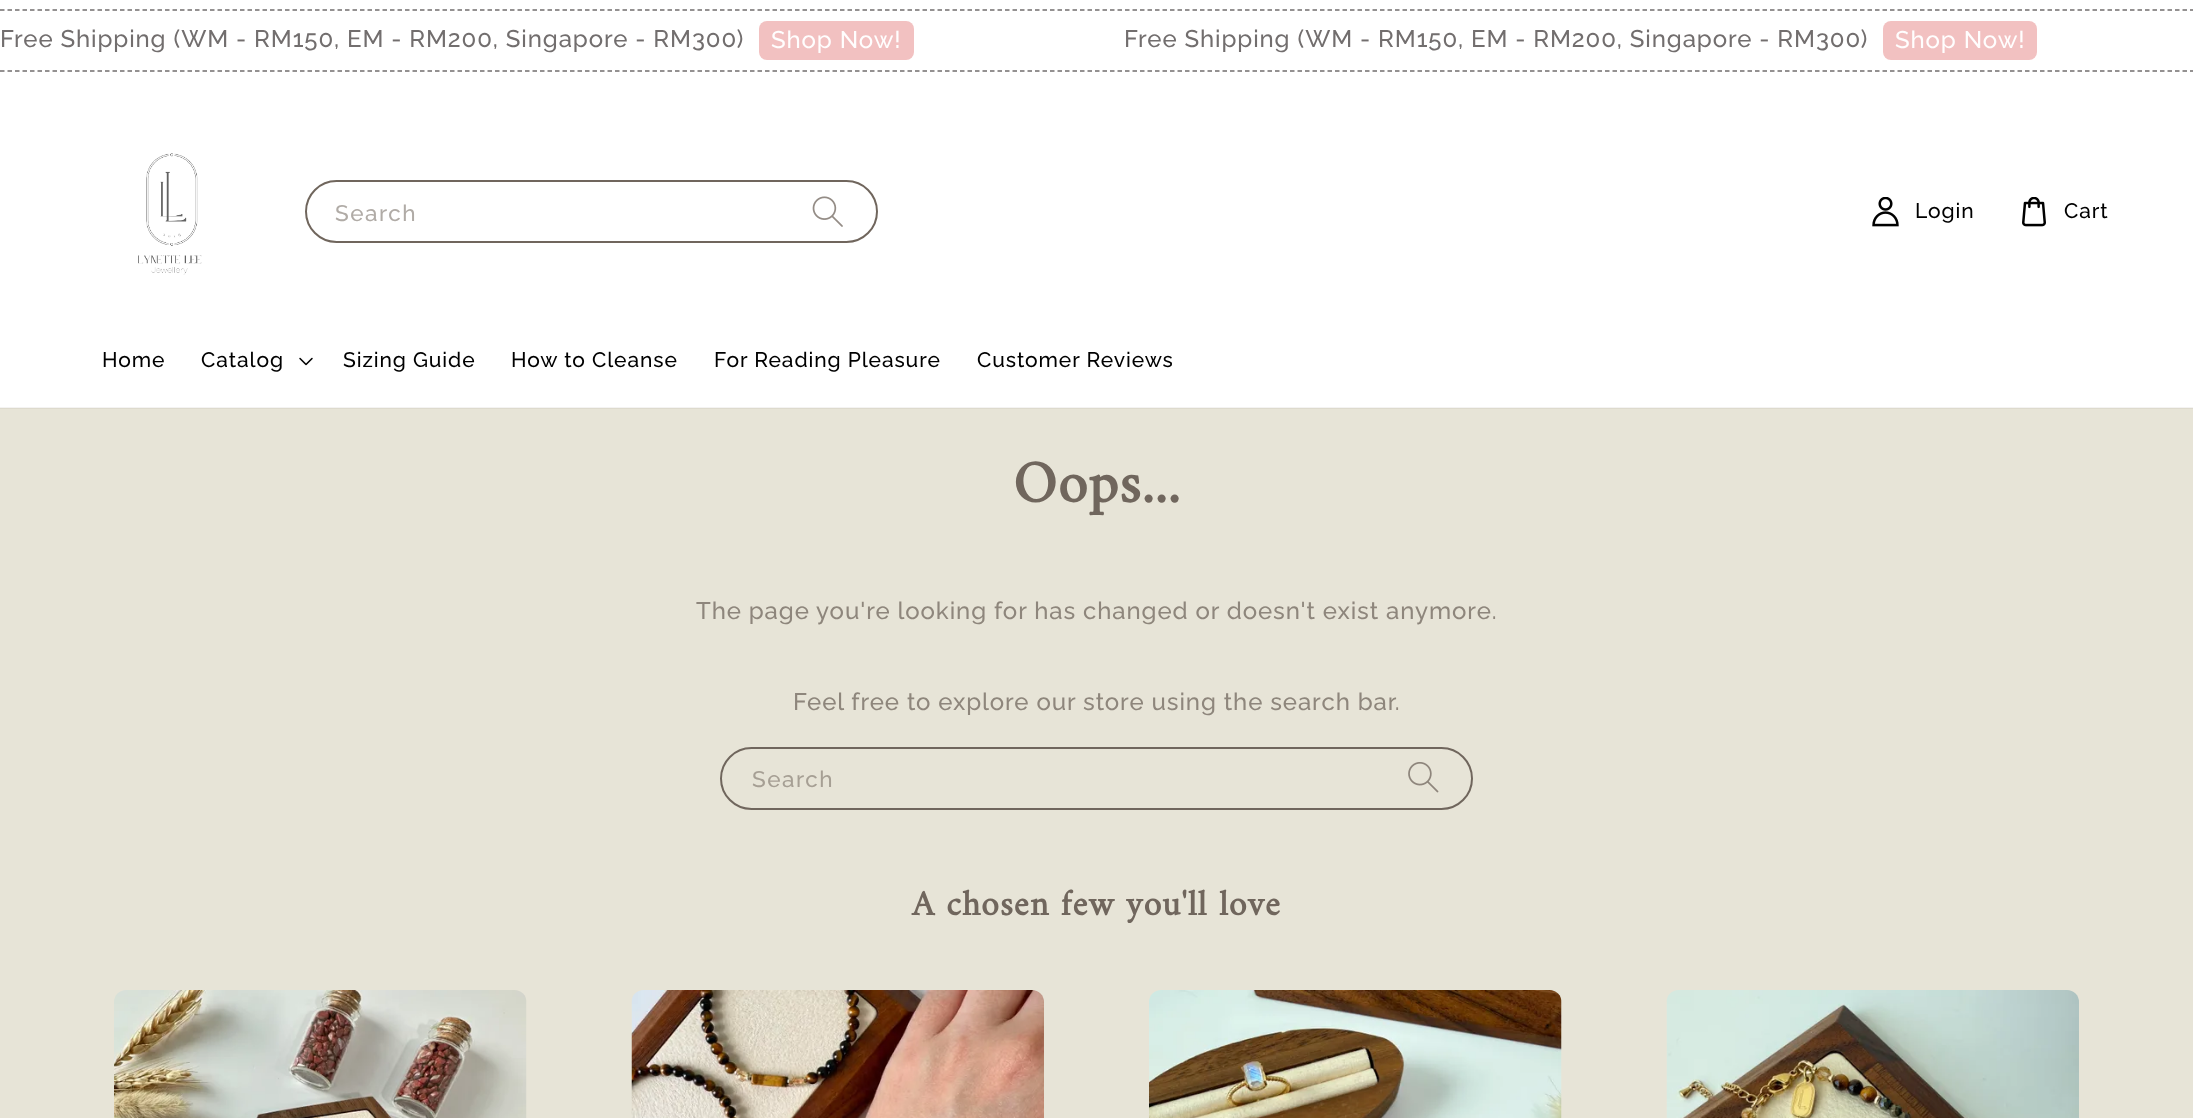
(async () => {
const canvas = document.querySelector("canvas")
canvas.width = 2193
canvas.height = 1118
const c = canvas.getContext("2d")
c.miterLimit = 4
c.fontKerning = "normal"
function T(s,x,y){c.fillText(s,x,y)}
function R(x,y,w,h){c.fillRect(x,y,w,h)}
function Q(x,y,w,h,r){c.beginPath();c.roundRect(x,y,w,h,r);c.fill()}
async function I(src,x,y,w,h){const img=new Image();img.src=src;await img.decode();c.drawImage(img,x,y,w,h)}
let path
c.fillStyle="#e7e4d7"
R(0,0,2193,1118)
c.fillStyle="#dddacd"
R(0,408,2193,1)
c.fillStyle="#fff"
R(0,0,2193,407)
path = new Path2D("M0 10h2193")
c.strokeStyle="#726e6e"
c.lineWidth=1.5
c.setLineDash([4.5,3])
c.stroke(path)
path = new Path2D("M0 71h2193")
c.stroke(path)
c.letterSpacing="0.9px"
c.font="500 24px Raleway"
c.fillStyle="#726e6e"
T("Free Shipping (WM - RM150, EM - RM200, Singapore - RM300)",0,47)
c.fillStyle="#f2c1c1"
Q(759,21,155,39,8)
c.fillStyle="#fffefe"
T("Shop Now!",771,48)
c.fillStyle="#726e6e"
T("Free Shipping (WM - RM150, EM - RM200, Singapore - RM300)",1124,47)
c.fillStyle="#f2c1c1"
Q(1883,21,154,39,8)
c.fillStyle="#fffefe"
T("Shop Now!",1895,48)
c.fillStyle="#f4f3f2"
R(0,407,2193,1)
await I("1.png",138,153,64,122)
c.beginPath()
c.roundRect(306,181,571,61,30.5)
c.strokeStyle="#70665d"
c.lineWidth=2
c.setLineDash([])
c.stroke()
c.letterSpacing="1.5px"
c.font="500 22.5px Raleway"
c.fillStyle="#b0aba6"
T("Search",335,221)
await I("2.png",812,196,31,31)
await I("3.png",1872,197,27,30)
c.letterSpacing="0.9px"
c.font="500 21px Raleway"
c.fillStyle="#000"
T("Login",1915,218)
await I("4.png",2022,197,24,30)
T("Cart",2064,218)
T("Home",102,367)
T("Catalog",201,367)
await I("5.png",299,357,14,9)
T("Sizing Guide",343,367)
T("How to Cleanse",511,367)
T("For Reading Pleasure",714,367)
T("Customer Reviews",977,367)
c.font="bold 60px Amiri"
c.fillStyle="#70665d"
T("Oops...",1013,502)
c.font="500 24px Raleway"
c.fillStyle="#8e867c"
T("The page you're looking for has changed or doesn't exist anymore.",696,619)
T("Feel free to explore our store using the search bar.",793,710)
c.beginPath()
c.roundRect(721,748,751,61,30.5)
c.stroke()
c.letterSpacing="1.5px"
c.font="500 22.5px Raleway"
c.fillStyle="#a69f94"
T("Search",752,787)
await I("6.png",1408,762,31,31)
c.letterSpacing="0.9px"
c.font="bold 36px Amiri"
c.fillStyle="#70665d"
T("A chosen few you'll love",912,915)
await I("7.png",114,990,413,128)
await I("8.png",631,990,413,128)
await I("9.png",1149,990,413,128)
await I("10.png",1666,990,413,128)
})()
